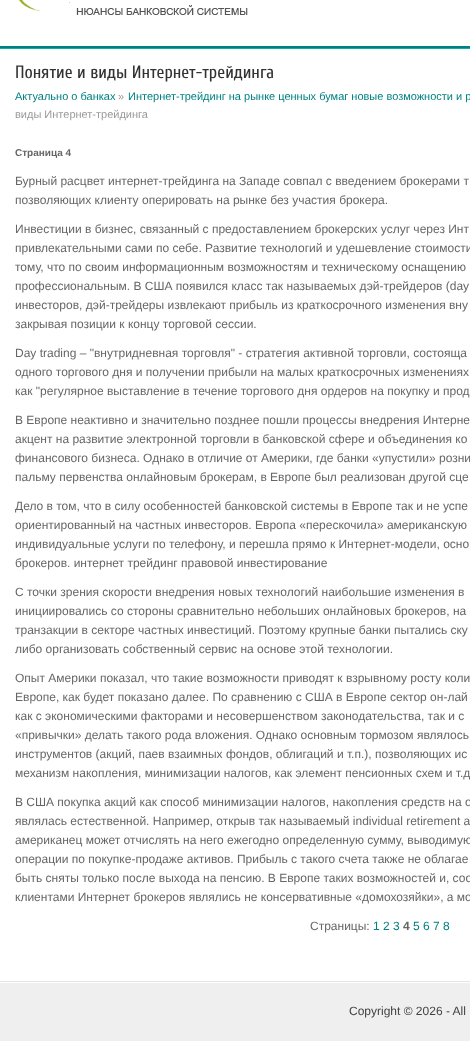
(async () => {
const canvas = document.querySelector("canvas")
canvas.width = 470
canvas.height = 1041
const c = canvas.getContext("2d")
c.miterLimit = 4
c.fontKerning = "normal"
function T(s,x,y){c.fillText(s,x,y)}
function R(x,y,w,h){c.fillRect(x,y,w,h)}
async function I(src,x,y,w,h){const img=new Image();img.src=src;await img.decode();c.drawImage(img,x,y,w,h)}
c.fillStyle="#fff"
R(0,0,470,1041)
c.fillStyle="#008080"
R(0,46,470,2)
await I("1.png",18,0,230,15)
c.fillStyle="#0faca8"
R(0,48,470,1)
c.font="18px Cuprum"
c.fillStyle="#333"
T("Понятие и виды Интернет-трейдинга",15,78)
c.font="11px Liberation Sans"
c.fillStyle="#008080"
T("Актуально о банках",15,100)
c.fillStyle="#999"
T("»",118,100)
c.fillStyle="#008080"
T("Интернет-трейдинг на рынке ценных бумаг новые возможности и р",128,100)
c.fillStyle="#999"
T("виды Интернет-трейдинга",15,118)
c.font="bold 10px Liberation Sans"
c.fillStyle="#666"
T("Страница 4",15,156)
c.font="12px Liberation Sans"
T("Бурный расцвет интернет-трейдинга на Западе совпал с введением брокерами т",15,185)
T("позволяющих клиенту оперировать на рынке без участия брокера.",15,204)
T("Инвестиции в бизнес, связанный с предоставлением брокерских услуг через Инт",15,233)
T("привлекательными сами по себе. Развитие технологий и удешевление стоимости",15,252)
T("тому, что по своим информационным возможностям и техническому оснащению",15,271)
T("профессиональным. В США появился класс так называемых дэй-трейдеров (day",15,290)
T("инвесторов, дэй-трейдеры извлекают прибыль из краткосрочного изменения вну",15,309)
T("закрывая позиции к концу торговой сессии.",15,328)
T("Day trading – \"внутридневная торговля\" - стратегия активной торговли, состояща",15,357)
T("одного торгового дня и получении прибыли на малых краткосрочных изменениях",15,376)
T("как \"регулярное выставление в течение торгового дня ордеров на покупку и прод",15,395)
T("В Европе неактивно и значительно позднее пошли процессы внедрения Интерне",15,424)
T("акцент на развитие электронной торговли в банковской сфере и объединения ко",15,443)
T("финансового бизнеса. Однако в отличие от Америки, где банки «упустили» розни",15,462)
T("пальму первенства онлайновым брокерам, в Европе был реализован другой сце",15,481)
T("Дело в том, что в силу особенностей банковской системы в Европе так и не успе",15,510)
T("ориентированный на частных инвесторов. Европа «перескочила» американскую",15,529)
T("индивидуальные услуги по телефону, и перешла прямо к Интернет-модели, осно",15,548)
T("брокеров. интернет трейдинг правовой инвестирование",15,567)
T("С точки зрения скорости внедрения новых технологий наибольшие изменения в",15,596)
T("инициировались со стороны сравнительно небольших онлайновых брокеров, на",15,615)
T("транзакции в секторе частных инвестиций. Поэтому крупные банки пытались ску",15,634)
T("либо организовать собственный сервис на основе этой технологии.",15,653)
T("Опыт Америки показал, что такие возможности приводят к взрывному росту коли",15,682)
T("Европе, как будет показано далее. По сравнению с США в Европе сектор он-лай",15,701)
T("как с экономическими факторами и несовершенством законодательства, так и с",15,720)
T("«привычки» делать такого рода вложения. Однако основным тормозом являлось",15,739)
T("инструментов (акций, паев взаимных фондов, облигаций и т.п.), позволяющих ис",15,758)
T("механизм накопления, минимизации налогов, как элемент пенсионных схем и т.д",15,777)
T("В США покупка акций как способ минимизации налогов, накопления средств на о",15,806)
T("являлась естественной. Например, открыв так называемый individual retirement a",15,825)
T("американец может отчислять на него ежегодно определенную сумму, выводимую",15,844)
T("операции по покупке-продаже активов. Прибыль с такого счета также не облагае",15,863)
T("быть сняты только после выхода на пенсию. В Европе таких возможностей и, соо",15,882)
T("клиентами Интернет брокеров являлись не консервативные «домохозяйки», а мо",15,901)
T("Страницы:",310,930)
c.fillStyle="#008080"
T("1 2 3",373,930)
c.font="bold 12px Liberation Sans"
c.fillStyle="#666"
T("4",403,930)
c.font="12px Liberation Sans"
c.fillStyle="#008080"
T("5 6 7 8",413,930)
c.fillStyle="#efefef"
R(0,983,470,58)
c.fillStyle="#e4e4e4"
R(0,981,470,1)
c.fillStyle="#434141"
T("Copyright © 2026 - All",349,1015)
})()
